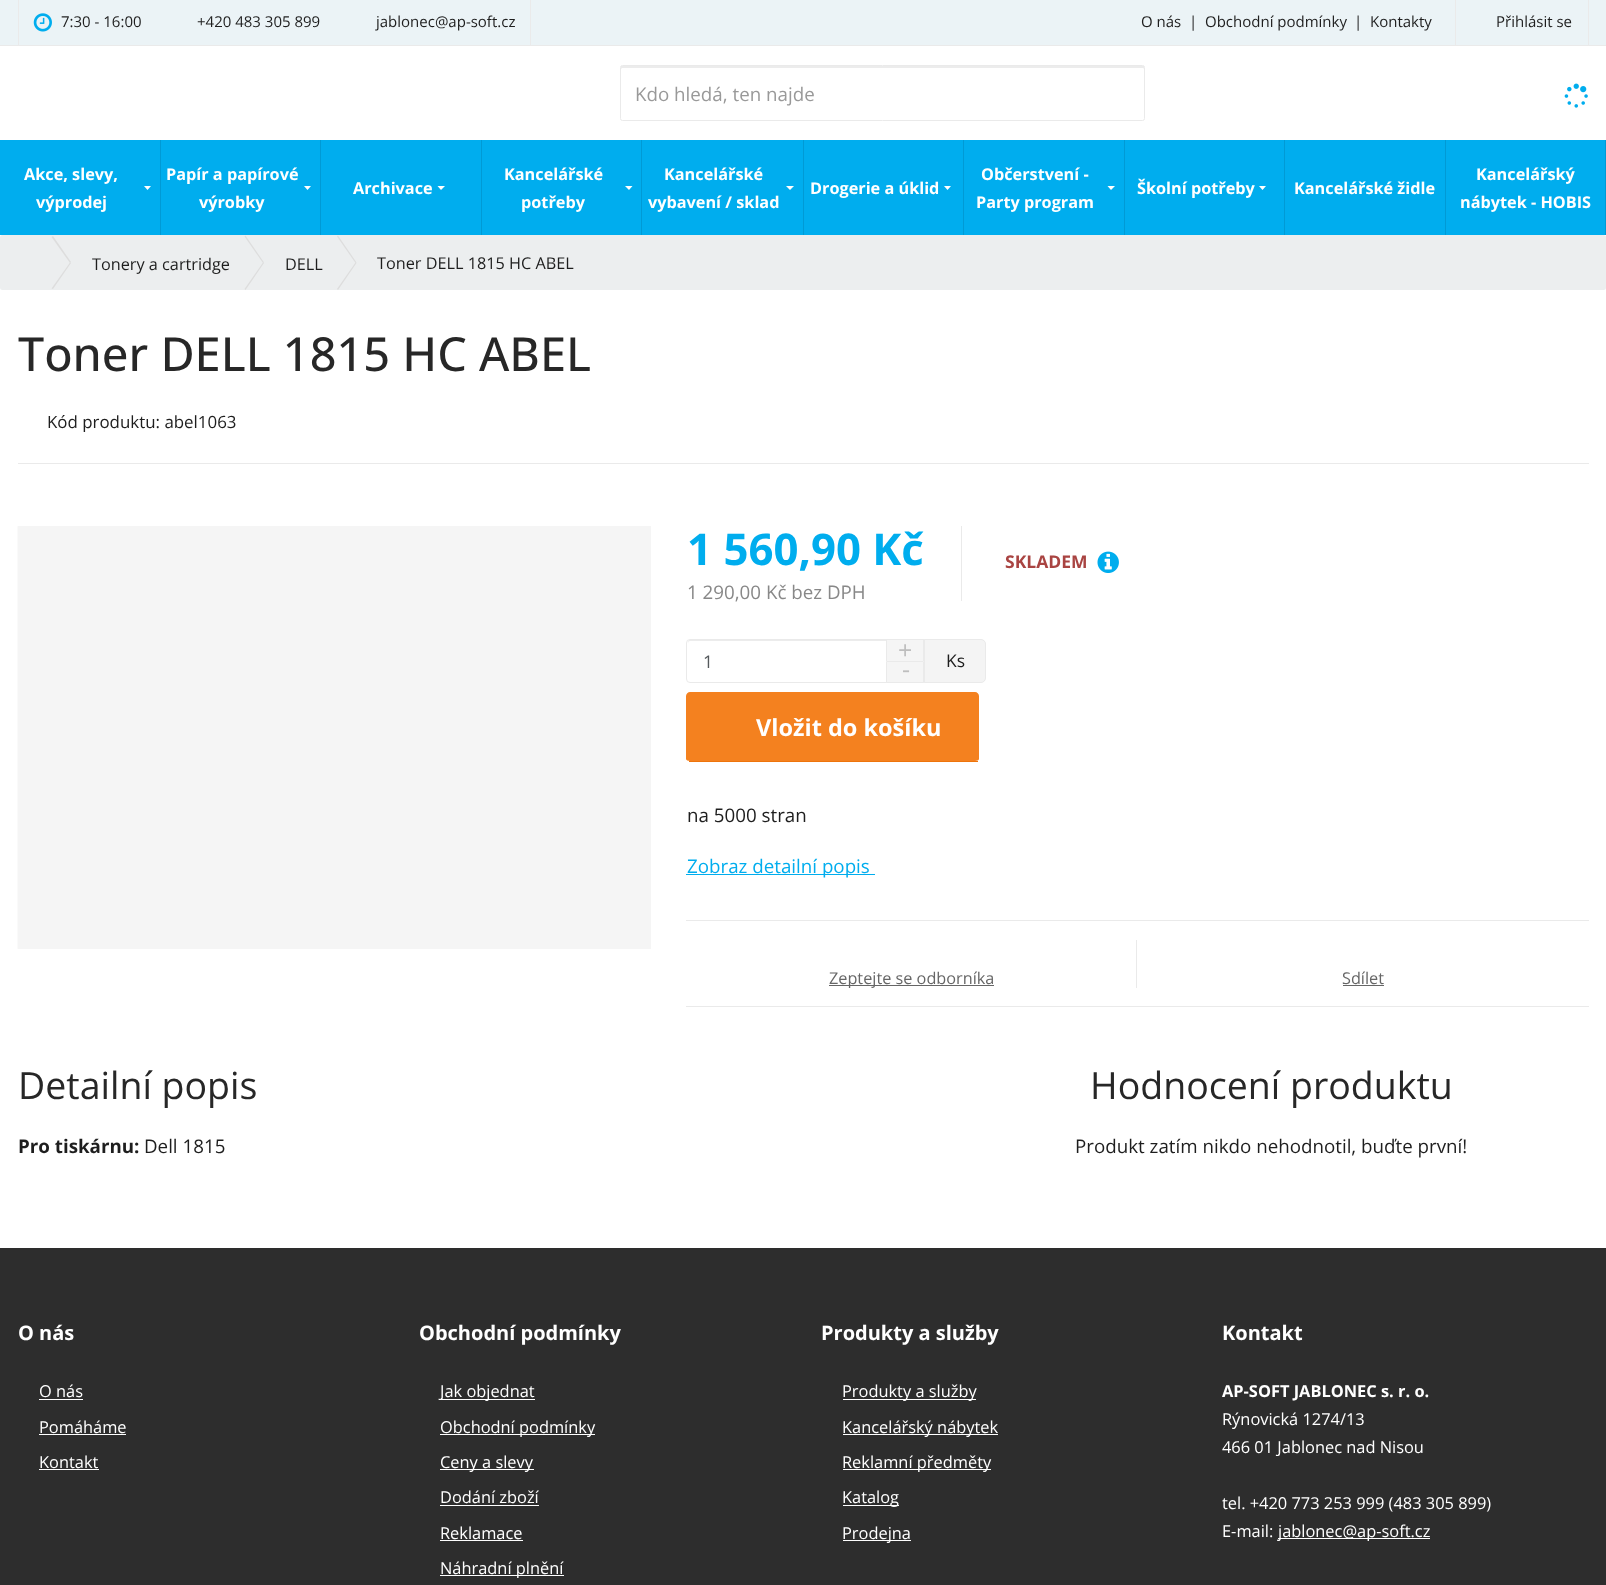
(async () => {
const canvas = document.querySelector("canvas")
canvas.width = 1606
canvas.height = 1585
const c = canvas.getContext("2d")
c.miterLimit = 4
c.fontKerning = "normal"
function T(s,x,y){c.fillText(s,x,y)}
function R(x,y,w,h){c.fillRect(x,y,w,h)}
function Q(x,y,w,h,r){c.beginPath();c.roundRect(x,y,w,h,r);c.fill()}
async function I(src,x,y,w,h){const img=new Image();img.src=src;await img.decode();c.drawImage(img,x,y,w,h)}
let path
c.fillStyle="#fff"
R(0,0,1606,1585)
c.fillStyle="#ebf3f6"
R(0,0,1606,45)
c.fillStyle="#eaeaea"
R(0,45,1606,1)
R(1588,0,1,45)
R(18,0,1,45)
R(530,0,1,45)
await I("1.png",33,13,19,19)
c.font="15px Open Sans"
c.fillStyle="#1e1e1e"
T("7:30 - 16:00",61,27)
T("+420 483 305 899",197,27)
T("jablonec@ap-soft.cz",376,27)
T("O nás",1141,27)
T("|",1189,27)
T("Obchodní podmínky",1205,27)
T("|",1354,27)
T("Kontakty",1370,27)
c.fillStyle="#eaeaea"
R(1455,0,1,45)
c.fillStyle="#1e1e1e"
T("Přihlásit se",1496,27)
c.fillStyle="#ececec"
path = new Path2D("M622 68h520c1 0 2 0 2 1v-2c0-1 0-1-1-1h-521c-1 0-1 0-1 1v2z")
c.fill(path)
c.beginPath()
c.roundRect(620.5,65.5,524,55,2)
c.strokeStyle="#eaeaea"
c.stroke()
c.font="18.75px Open Sans"
c.fillStyle="#999"
T("Kdo hledá, ten najde",635,101)
await I("2.png",1564,83,24,25)
c.fillStyle="#00adee"
R(0,140,1605,95)
c.fillStyle="#009ad5"
R(160,140,1,95)
c.font="bold 16.25px Open Sans"
c.fillStyle="#fff"
T("Akce, slevy,",24,180)
path = new Path2D("M144 186h7l-3.5 4z")
c.fill(path)
T("výprodej",36,208)
c.fillStyle="#009ad5"
R(320,140,1,95)
c.fillStyle="#fff"
T("Papír a papírové",166,180)
path = new Path2D("M304 186h7l-3.5 4z")
c.fill(path)
T("výrobky",199,208)
c.fillStyle="#009ad5"
R(481,140,1,95)
c.fillStyle="#fff"
T("Archivace",353,194)
path = new Path2D("M437.5 186h7.5l-4 4z")
c.fill(path)
c.fillStyle="#009ad5"
R(641,140,1,95)
c.fillStyle="#fff"
T("Kancelářské",504,180)
path = new Path2D("M625 186h7.5l-3.5 4z")
c.fill(path)
T("potřeby",521,208)
c.fillStyle="#009ad5"
R(803,140,1,95)
c.fillStyle="#fff"
T("Kancelářské",664,180)
path = new Path2D("M786 186h8l-4 4z")
c.fill(path)
T("vybavení / sklad",648,208)
c.fillStyle="#009ad5"
R(963,140,1,95)
c.fillStyle="#fff"
T("Drogerie a úklid",810,194)
path = new Path2D("M944 186h7l-3.5 4z")
c.fill(path)
c.fillStyle="#009ad5"
R(1124,140,1,95)
c.fillStyle="#fff"
T("Občerstvení -",981,180)
path = new Path2D("M1107.5 186h7.5l-4 4z")
c.fill(path)
T("Party program",976,208)
c.fillStyle="#009ad5"
R(1284,140,1,95)
c.fillStyle="#fff"
T("Školní potřeby",1137,194)
path = new Path2D("M1259 186h7l-3.5 4z")
c.fill(path)
c.fillStyle="#009ad5"
R(1445,140,1,95)
c.fillStyle="#fff"
T("Kancelářské židle",1294,194)
c.fillStyle="#009ad5"
R(1605,140,1,95)
c.fillStyle="#fff"
T("Kancelářský",1476,180)
T("nábytek - HOBIS",1460,208)
c.fillStyle="#eceeef"
Q(0,235,1606,55,2.5)
c.fillStyle="#ddd"
path = new Path2D("M51.5 237l1.5-1l18 26l-1 1z")
c.fill(path)
path = new Path2D("M70 262.5l1 .5l-18 26l-1.5-.5z")
c.fill(path)
path = new Path2D("M244.5 236.5l1-1l18.5 27l-1 .5z")
c.fill(path)
c.font="16.25px Open Sans"
c.fillStyle="#1e1e1e"
T("Tonery a cartridge",92,270)
c.fillStyle="#ddd"
path = new Path2D("M263 262.5l1 .5l-18.5 27l-1-1z")
c.fill(path)
c.fillStyle="#1e1e1e"
T("DELL",285,270)
c.fillStyle="#ddd"
path = new Path2D("M337 236.5l1-1l18.5 27l-1 .5z")
c.fill(path)
path = new Path2D("M355.5 262.5l1 .5l-18.5 27l-1-1z")
c.fill(path)
c.fillStyle="#1e1e1e"
T("Toner DELL 1815 HC ABEL",377,269)
c.fillStyle="#eaeaea"
R(18,463,1571,1)
c.font="500 46.9px Open Sans"
c.fillStyle="#272727"
T("Toner DELL 1815 HC ABEL",18,371)
c.font="16.9px Open Sans"
c.fillStyle="#1e1e1e"
T("Kód produktu: abel1063",47,428)
c.fillStyle="#f5f5f5"
R(18,526,633,423)
await I("3.png",17,526,1,423)
c.fillStyle="#eaeaea"
R(961,526,1,75)
c.font="bold 43.75px Open Sans"
c.fillStyle="#00adee"
T("1 560,90 Kč",687,565)
c.font="18.75px Open Sans"
c.fillStyle="#888"
T("1 290,00 Kč bez DPH",687,599)
c.font="bold 17.5px Open Sans"
c.fillStyle="#a94442"
T("SKLADEM",1005,568)
await I("4.png",1097,551,22,22)
c.fillStyle="#ececec"
path = new Path2D("M690 641h242c2 0 3 1 3 3c0-2 0-4-3-4h-242c-2 0-2 2-2 4c0-2 1-3 2-3z")
c.fill(path)
c.beginPath()
c.roundRect(686.5,639.5,249,43,3.5)
c.stroke()
c.fillStyle="#f5f5f5"
R(887,640,36,21)
c.fillStyle="#eaeaea"
R(923,639,1,22)
R(886,639,1,22)
c.font="25px Open Sans"
c.fillStyle="#bebebe"
T("+",898,659)
c.font="17.5px Open Sans"
c.fillStyle="#55595c"
T("1",703,668)
c.fillStyle="#f4f4f4"
c.beginPath()
c.roundRect(924.5,639.5,61,43,[0,4.5,4.5,0])
c.fill()
c.stroke()
c.fillStyle="#1e1e1e"
T("Ks",946,667)
c.fillStyle="#f5f5f5"
c.beginPath()
c.rect(886.5,661.5,37,21)
c.fill()
c.stroke()
c.font="25px Open Sans"
c.fillStyle="#bebebe"
T("-",902,678)
c.fillStyle="#f4811f"
path = new Path2D("M690 692h285c2 0 4 2 4 4v63c0 1-2 2-4 2h-285c-2 0-4-1-4-2v-63c0-2 2-4 4-4z")
c.fill(path)
c.fillStyle="#ee740c"
R(689,761,289,1)
c.font="bold 23.5px Open Sans"
c.fillStyle="#fff"
T("Vložit do košíku",756,736)
c.font="18.75px Open Sans"
c.fillStyle="#1e1e1e"
T("na 5000 stran",687,822)
c.fillStyle="#00adee"
R(686,874,189,1)
T("Zobraz detailní popis",687,873)
c.fillStyle="#eaeaea"
R(686,920,903,1)
R(686,1006,903,1)
R(1136,940,1,48)
c.fillStyle="#666"
R(829,985,165,1)
c.font="16.25px Open Sans"
T("Zeptejte se odborníka",829,984)
T("Sdílet",1342,984)
R(1343,985,41,1)
c.font="37.5px Open Sans"
c.fillStyle="#272727"
T("Detailní popis",18,1099)
c.font="bold 18.75px Open Sans"
c.fillStyle="#1e1e1e"
T("Pro tiskárnu:",18,1153)
c.font="18.75px Open Sans"
T("Dell 1815",144,1153)
c.font="37.5px Open Sans"
c.fillStyle="#272727"
T("Hodnocení produktu",1090,1099)
c.font="18.75px Open Sans"
c.fillStyle="#1e1e1e"
T("Produkt zatím nikdo nehodnotil, buďte první!",1075,1153)
c.fillStyle="#2d2d2d"
R(0,1248,1606,337)
c.font="bold 20px Open Sans"
c.fillStyle="#fff"
T("O nás",18,1340)
c.font="16.4px Open Sans"
T("O nás",39,1397)
R(39,1399,44,1)
T("Pomáháme",39,1433)
R(39,1434,87,1)
T("Kontakt",39,1468)
R(39,1469,60,1)
c.font="bold 20px Open Sans"
T("Obchodní podmínky",419,1340)
R(440,1399,95,1)
c.font="16.4px Open Sans"
T("Jak objednat",440,1397)
R(440,1434,155,1)
T("Obchodní podmínky",440,1433)
R(440,1469,94,1)
T("Ceny a slevy",440,1468)
T("Dodání zboží",440,1503)
R(440,1505,99,1)
T("Reklamace",440,1539)
R(440,1540,83,1)
R(440,1575,124,1)
T("Náhradní plnění",440,1574)
c.font="bold 20px Open Sans"
T("Produkty a služby",821,1340)
R(843,1399,133,1)
c.font="16.4px Open Sans"
T("Produkty a služby",842,1397)
R(843,1434,155,1)
T("Kancelářský nábytek",842,1433)
R(843,1469,148,1)
T("Reklamní předměty",842,1468)
R(843,1505,56,1)
T("Katalog",842,1503)
R(843,1540,68,1)
T("Prodejna",842,1539)
c.font="bold 20px Open Sans"
T("Kontakt",1222,1340)
c.font="bold 16.4px Open Sans"
T("AP-SOFT JABLONEC s. r. o.",1222,1397)
c.font="16.4px Open Sans"
T("Rýnovická 1274/13",1222,1425)
T("466 01 Jablonec nad Nisou",1222,1453)
T("tel. +420 773 253 999 (483 305 899)",1222,1509)
T("E-mail:",1222,1537)
R(1278,1538,152,1)
T("jablonec@ap-soft.cz",1278,1537)
})()
